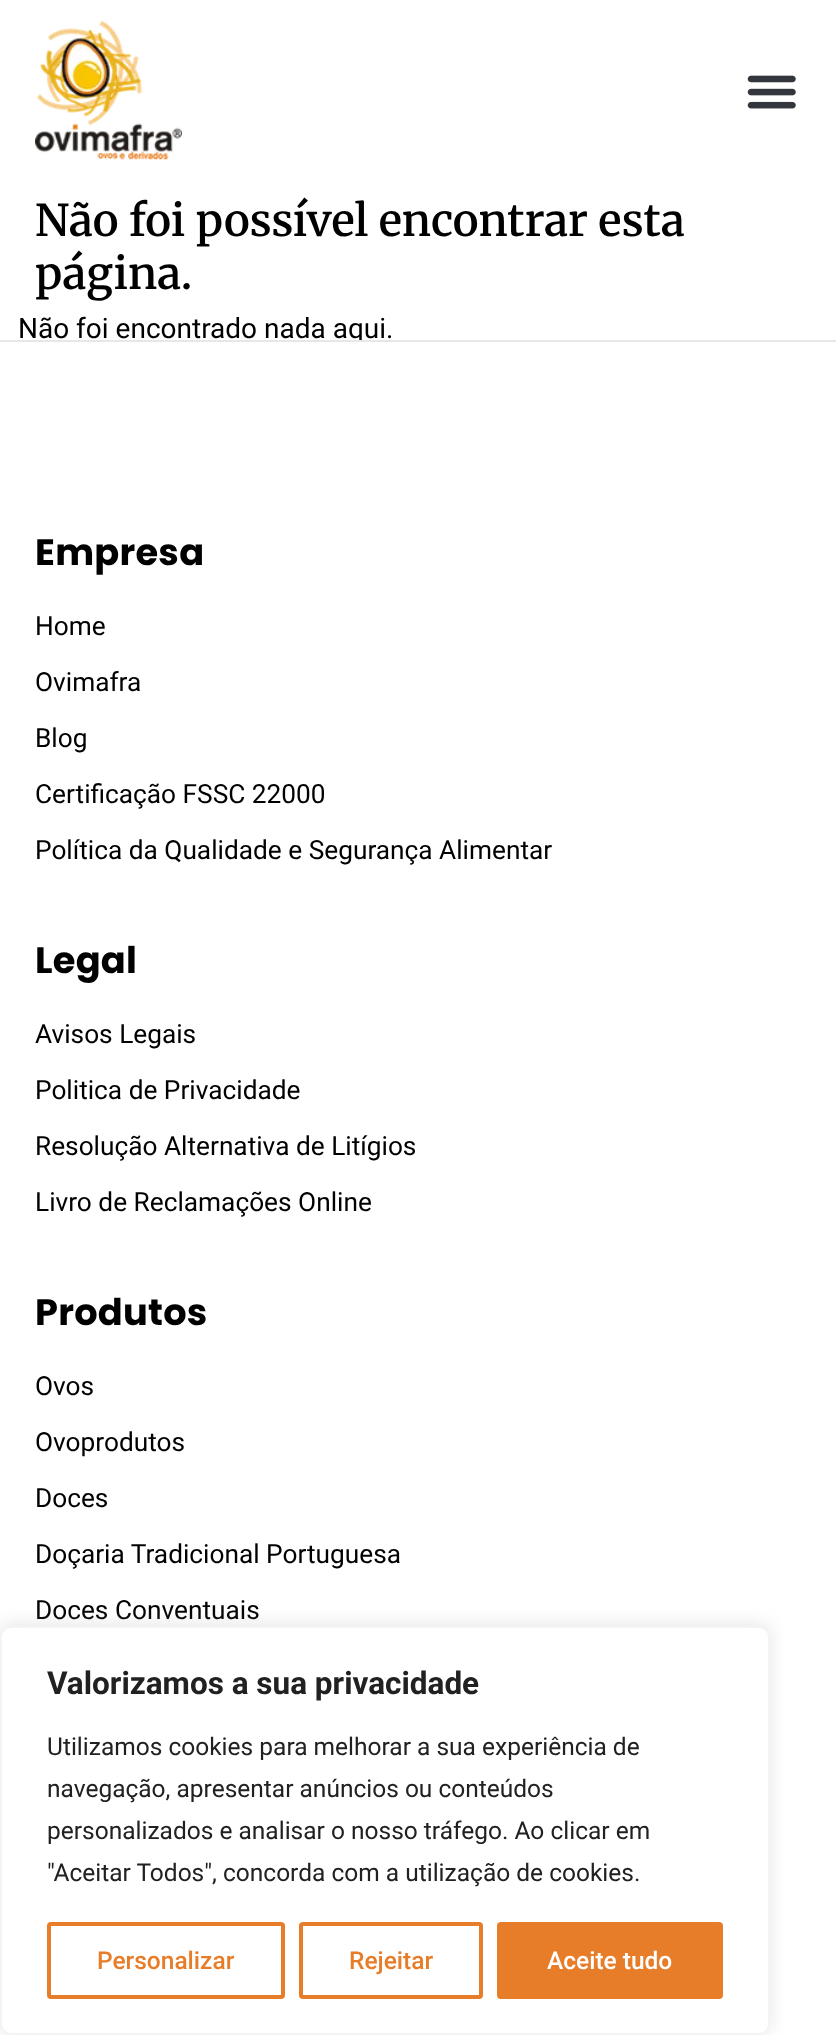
(async () => {
const canvas = document.querySelector("canvas")
canvas.width = 836
canvas.height = 2035
const c = canvas.getContext("2d")
c.miterLimit = 4
c.fontKerning = "normal"
function T(s,x,y){c.fillText(s,x,y)}
function R(x,y,w,h){c.fillRect(x,y,w,h)}
async function I(src,x,y,w,h){const img=new Image();img.src=src;await img.decode();c.drawImage(img,x,y,w,h)}
c.fillStyle="#fff"
R(0,0,836,2035)
await I("1.png",35,21,147,139)
await I("2.png",747,75,49,34)
c.font="600 43.75px Merriweather"
c.fillStyle="#000"
T("Não foi possível encontrar esta",35,236)
T("página.",35,289)
c.font="28px Roboto"
T("Não foi encontrado nada aqui.",18,338)
c.fillStyle="#fff"
R(358,342,4,2)
c.fillStyle="#e7e7e7"
R(0,340,836,2)
c.letterSpacing="0.25px"
c.font="bold 36.75px Poppins"
c.fillStyle="#000"
T("Empresa",35,565)
c.letterSpacing="0px"
c.font="26.25px Roboto"
T("Home",35,635)
T("Ovimafra",35,691)
T("Blog",35,747)
T("Certificação FSSC 22000",35,803)
T("Política da Qualidade e Segurança Alimentar",35,859)
c.letterSpacing="0.25px"
c.font="bold 36.75px Poppins"
T("Legal",35,973)
c.letterSpacing="0px"
c.font="26.25px Roboto"
T("Avisos Legais",35,1043)
T("Politica de Privacidade",35,1099)
T("Resolução Alternativa de Litígios",35,1155)
T("Livro de Reclamações Online",35,1211)
c.letterSpacing="0.25px"
c.font="bold 36.75px Poppins"
T("Produtos",35,1325)
c.letterSpacing="0px"
c.font="26.25px Roboto"
T("Ovos",35,1395)
T("Ovoprodutos",35,1451)
T("Doces",35,1507)
T("Doçaria Tradicional Portuguesa",35,1563)
T("Doces Conventuais",35,1619)
c.fillStyle="#acabab4d"
c.filter="blur(9px)"
c.beginPath()
c.roundRect(0,1624,770,410,11)
c.fill()
c.filter="none"
c.fillStyle="#fff"
c.beginPath()
c.roundRect(1,1627,768,407,10)
c.fill()
c.strokeStyle="#f4f4f4"
c.lineWidth=2
c.stroke()
c.font="bold 31.5px Roboto"
c.fillStyle="#212121"
T("Valorizamos a sua privacidade",47,1694)
c.font="24.5px Roboto"
T("Utilizamos cookies para melhorar a sua experiência de",47,1755)
T("navegação, apresentar anúncios ou conteúdos",47,1797)
T("personalizados e analisar o nosso tráfego. Ao clicar em",47,1839)
T("\"Aceitar Todos\", concorda com a utilização de cookies.",47,1881)
c.beginPath()
c.roundRect(49,1924,234,73,2)
c.strokeStyle="#e77d29"
c.lineWidth=4
c.stroke()
c.font="500 24.5px Roboto"
c.fillStyle="#e77d29"
T("Personalizar",97,1969)
c.beginPath()
c.roundRect(301,1924,180,73,2)
c.stroke()
T("Rejeitar",349,1969)
c.beginPath()
c.roundRect(499,1924,222,73,2)
c.fill()
c.stroke()
c.fillStyle="#fff"
T("Aceite tudo",547,1969)
})()
